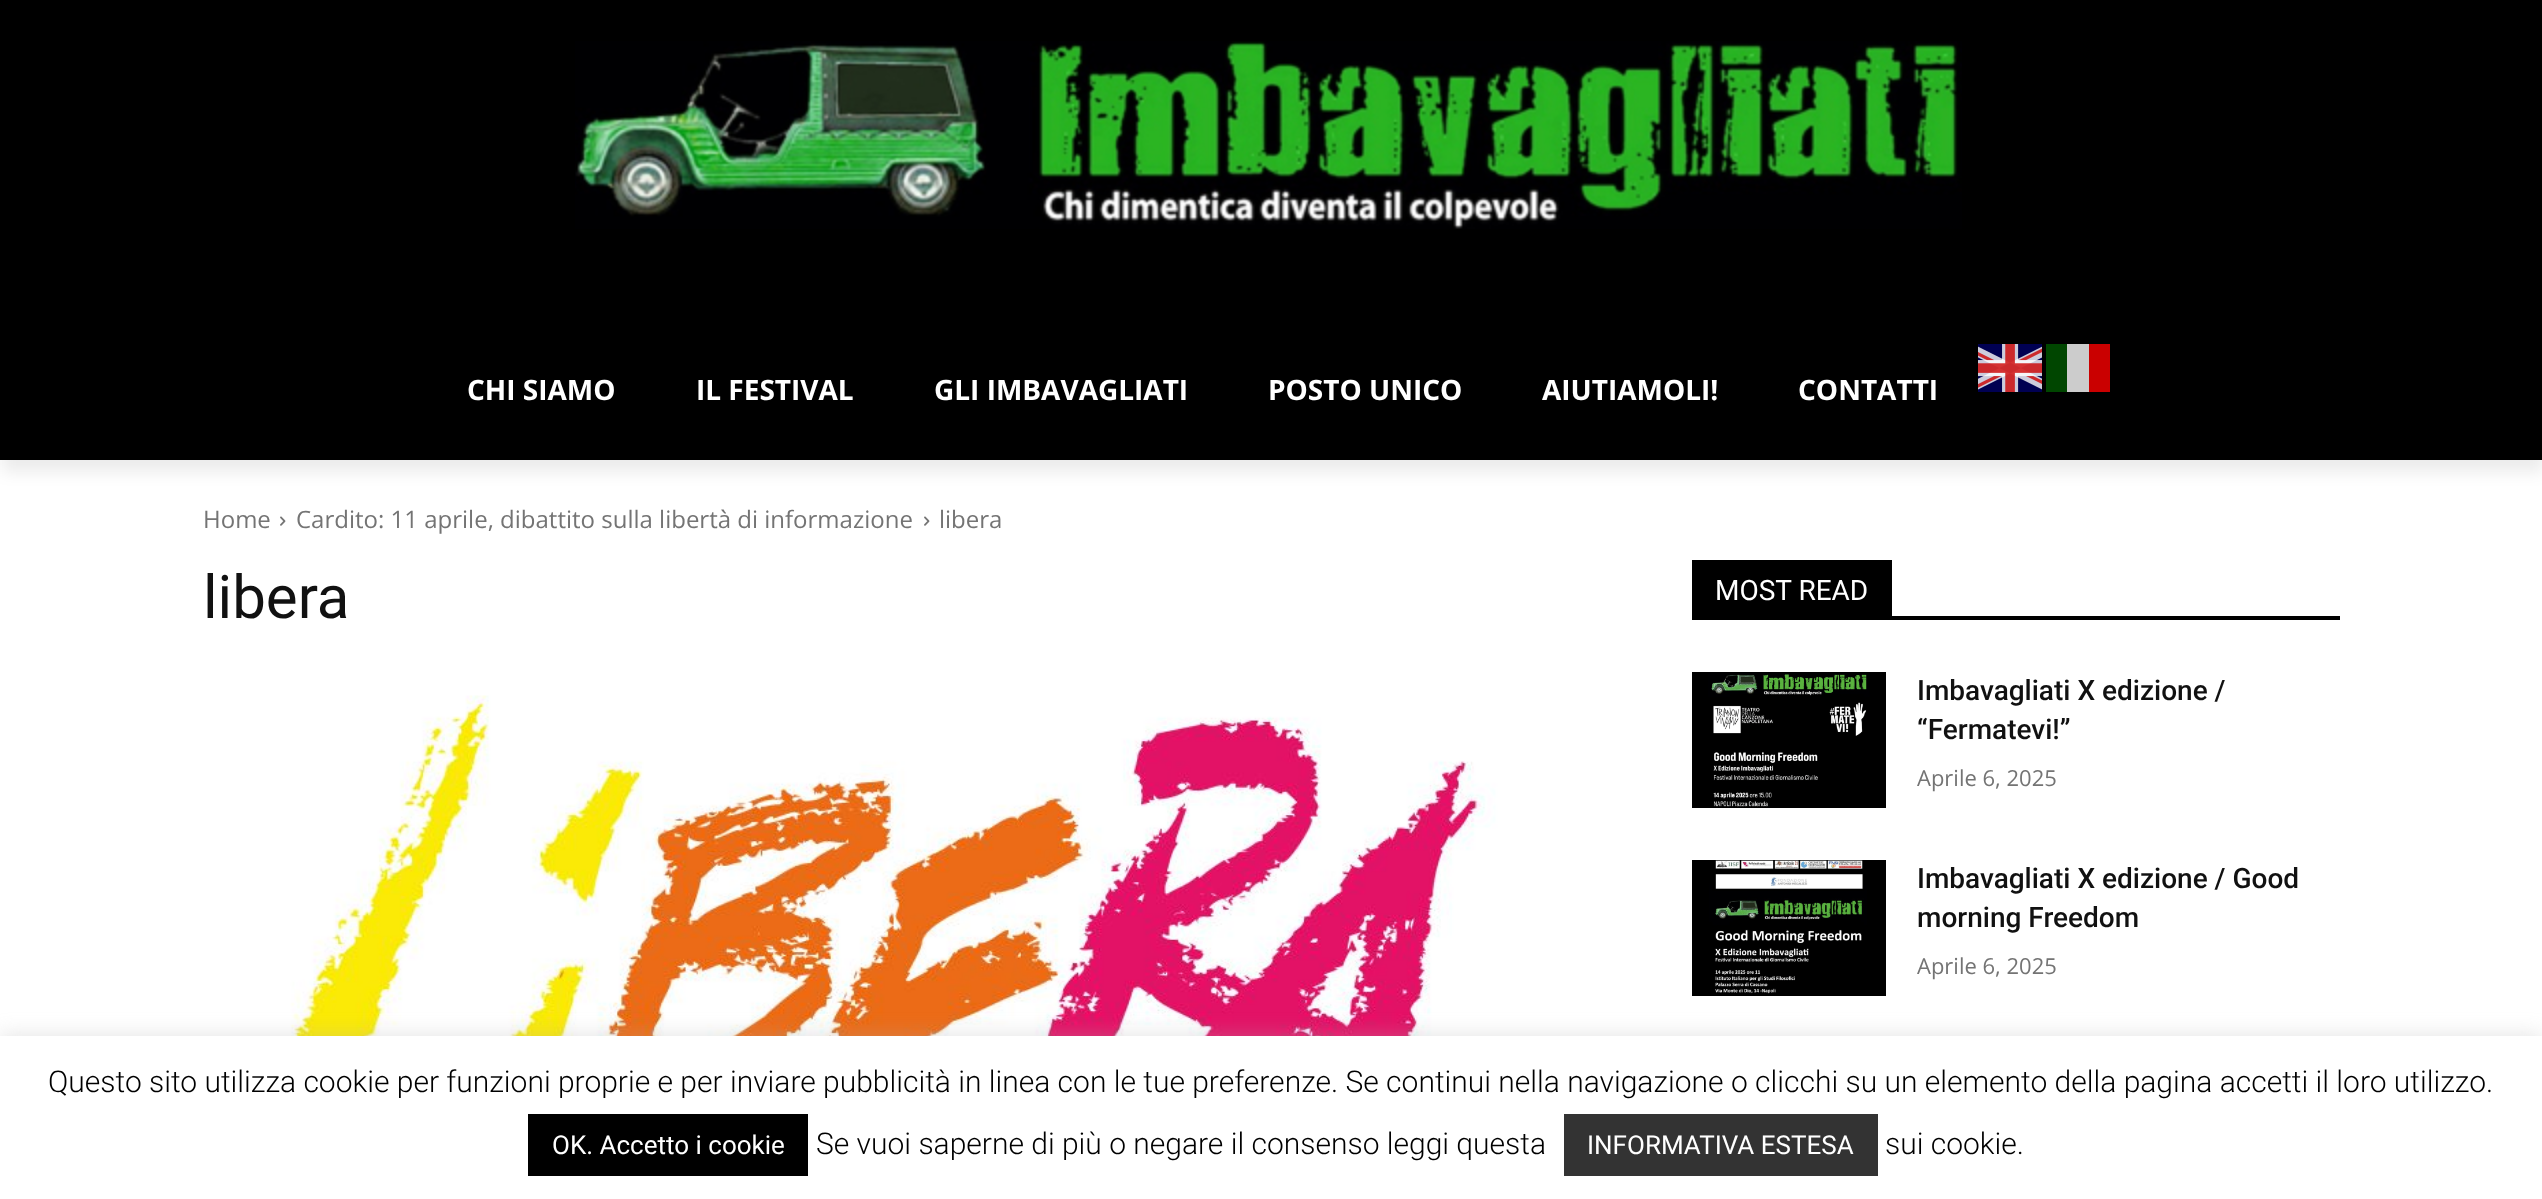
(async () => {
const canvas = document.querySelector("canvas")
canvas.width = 2542
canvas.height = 1199
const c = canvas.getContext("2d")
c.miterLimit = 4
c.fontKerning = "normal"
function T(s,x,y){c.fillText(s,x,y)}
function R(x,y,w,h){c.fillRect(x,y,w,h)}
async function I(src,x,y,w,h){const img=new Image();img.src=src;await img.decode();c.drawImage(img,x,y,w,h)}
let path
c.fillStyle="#fff"
R(0,0,2542,1199)
c.fillStyle="#000"
R(0,0,2542,460)
await I("1.png",575,41,1387,188)
c.save()
path = new Path2D("M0 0h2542v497h-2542zm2 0h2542v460h-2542z")
c.clip(path,"evenodd")
c.fillStyle="#00000014"
c.filter="blur(8px)"
c.beginPath()
c.rect(2,12,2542,460)
c.fill()
c.filter="none"
c.restore()
c.font="bold 28px Open Sans"
c.fillStyle="#fff"
T("CHI SIAMO",467,400)
T("IL FESTIVAL",696,400)
T("GLI IMBAVAGLIATI",934,400)
T("POSTO UNICO",1268,400)
T("AIUTIAMOLI!",1542,400)
T("CONTATTI",1798,400)
await I("2.png",1978,344,64,48)
c.fillStyle="#004600"
R(2046,344,21,48)
c.fillStyle="#ccc"
R(2067,344,22,48)
c.fillStyle="#ca0000"
R(2089,344,21,48)
c.font="24px Open Sans"
c.fillStyle="#747474"
T("Home",203,528)
await I("3.png",280,516,6,10)
T("Cardito: 11 aprile, dibattito sulla libertà di informazione",296,528)
await I("3.png",924,516,6,10)
T("libera",939,528)
c.font="60px Roboto"
c.fillStyle="#111"
T("libera",203,618)
await I("4.png",247,695,1315,341)
c.fillStyle="#000"
R(1692,616,648,4)
R(1692,560,200,56)
c.font="28px Roboto"
c.fillStyle="#fff"
T("MOST READ",1715,600)
await I("5.png",1692,672,194,136)
c.font="500 28px Roboto"
c.fillStyle="#111"
T("Imbavagliati X edizione /",1917,700)
T("“Fermatevi!”",1917,739)
c.font="22px Open Sans"
c.fillStyle="#747474"
T("Aprile 6, 2025",1917,786)
await I("6.png",1692,860,194,136)
c.font="500 28px Roboto"
c.fillStyle="#111"
T("Imbavagliati X edizione / Good",1917,888)
T("morning Freedom",1917,927)
c.font="22px Open Sans"
c.fillStyle="#747474"
T("Aprile 6, 2025",1917,974)
c.fillStyle="#acabab4d"
c.filter="blur(10px)"
c.beginPath()
c.rect(0,1034,2542,164)
c.fill()
c.filter="none"
c.fillStyle="#fff"
R(0,1036,2542,163)
c.font="300 30px Roboto"
c.fillStyle="#000"
T("Questo sito utilizza cookie per funzioni proprie e per inviare pubblicità in linea con le tue preferenze. Se continui nella navigazione o clicchi su un elemento della pagina accetti il loro utilizzo.",48,1092)
R(528,1114,280,62)
c.font="26px Roboto"
c.fillStyle="#fff"
T("OK. Accetto i cookie",552,1154)
c.font="300 30px Roboto"
c.fillStyle="#000"
T("Se vuoi saperne di più o negare il consenso leggi questa",816,1154)
c.fillStyle="#333"
R(1564,1114,314,62)
c.font="26px Roboto"
c.fillStyle="#fff"
T("INFORMATIVA ESTESA",1587,1154)
c.font="300 30px Roboto"
c.fillStyle="#000"
T("sui cookie.",1885,1154)
})()
